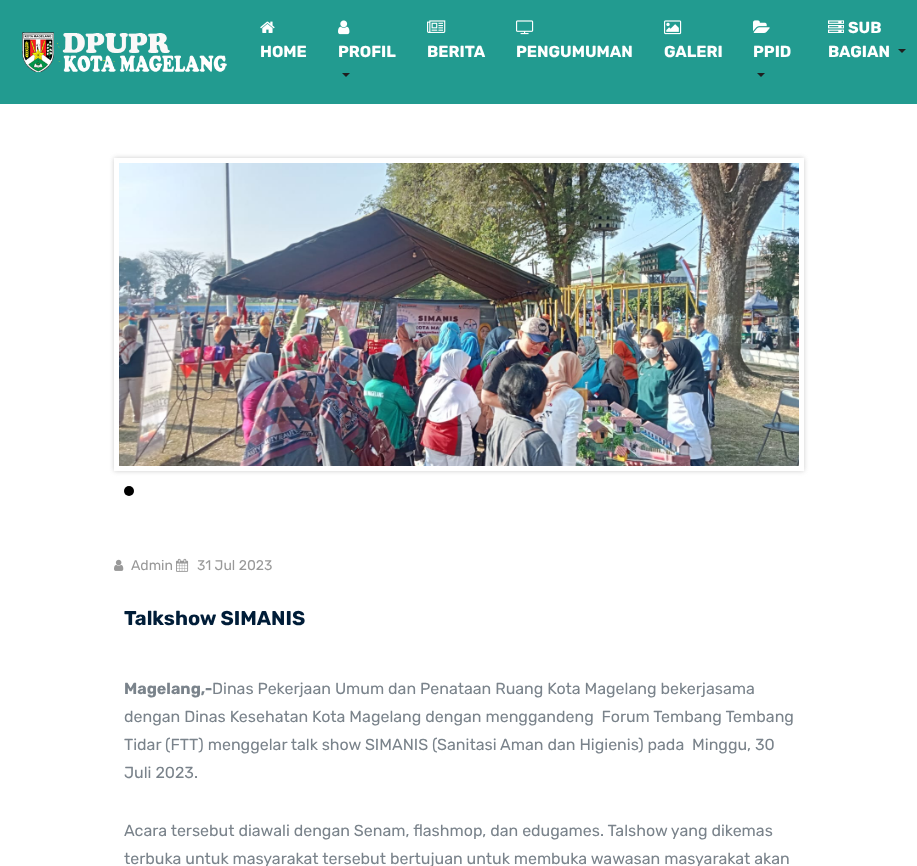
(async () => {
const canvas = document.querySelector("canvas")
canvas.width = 917
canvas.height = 866
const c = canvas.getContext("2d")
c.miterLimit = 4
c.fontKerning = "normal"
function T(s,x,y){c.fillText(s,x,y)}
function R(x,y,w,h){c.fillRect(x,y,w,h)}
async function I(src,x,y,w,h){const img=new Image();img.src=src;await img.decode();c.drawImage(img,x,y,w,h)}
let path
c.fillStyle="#fff"
R(0,0,917,866)
c.fillStyle="#229b90"
R(0,0,917,104)
await I("1.png",22,32,205,41)
await I("2.png",260,21,15,12)
c.font="bold 16px Rubik"
c.fillStyle="#fff"
T("HOME",260,57)
await I("3.png",338,20,12,15)
T("PROFIL",338,57)
c.fillStyle="#1f1f1f"
path = new Path2D("M342 73h8l-4 4z")
c.fill(path)
await I("4.png",427,20,19,13)
c.fillStyle="#fff"
T("BERITA",427,57)
await I("5.png",516,20,18,15)
T("PENGUMUMAN",516,57)
await I("6.png",664,20,18,15)
T("GALERI",664,57)
await I("7.png",753,20,17,13)
T("PPID",753,57)
c.fillStyle="#1f1f1f"
path = new Path2D("M757 73h8l-4 4z")
c.fill(path)
await I("8.png",828,20,16,13)
c.fillStyle="#fff"
T("SUB",848,33)
T("BAGIAN",828,57)
c.fillStyle="#1f1f1f"
path = new Path2D("M898 49h8l-4 4z")
c.fill(path)
c.save()
path = new Path2D("M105 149h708v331h-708zm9 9h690v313h-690z")
c.clip(path,"evenodd")
c.fillStyle="#ccc"
c.filter="blur(2.5px)"
c.beginPath()
c.rect(114,158,690,313)
c.fill()
c.filter="none"
c.restore()
await I("9.png",119,163,680,303)
c.fillStyle="#000"
c.beginPath()
c.arc(129,491,5,0,7)
c.fill()
await I("10.png",114,559,10,12)
c.font="14px Rubik"
c.fillStyle="#999"
T("Admin",131,570)
await I("11.png",176,558,13,14)
T("31 Jul 2023",197,570)
c.font="bold 20px Rubik"
c.fillStyle="#001d38"
T("Talkshow SIMANIS",124,625)
c.font="bold 16px Rubik"
c.fillStyle="#7a838b"
T("Magelang,-",124,694)
c.font="16px Rubik"
T("Dinas Pekerjaan Umum dan Penataan Ruang Kota Magelang bekerjasama",212,694)
T("dengan Dinas Kesehatan Kota Magelang dengan menggandeng  Forum Tembang Tembang",124,722)
T("Tidar (FTT) menggelar talk show SIMANIS (Sanitasi Aman dan Higienis) pada  Minggu, 30",124,750)
T("Juli 2023.",124,778)
T("Acara tersebut diawali dengan Senam, flashmop, dan edugames. Talshow yang dikemas",124,836)
T("terbuka untuk masyarakat tersebut bertujuan untuk membuka wawasan masyarakat akan",124,864)
})()
